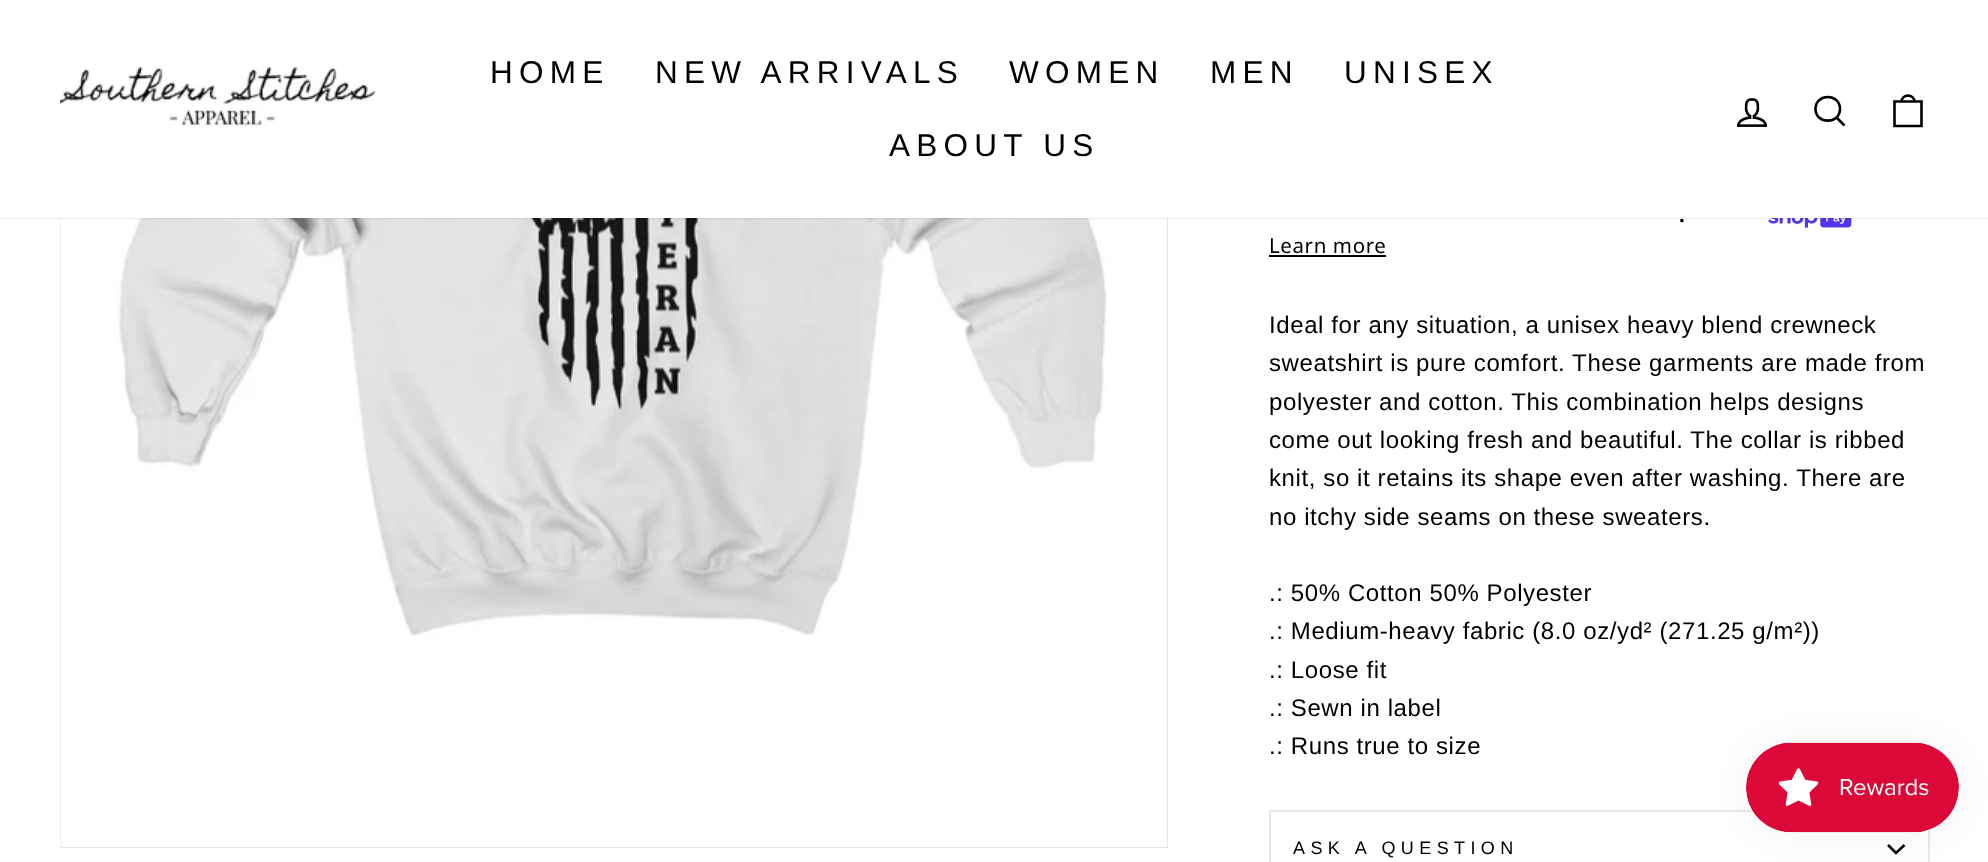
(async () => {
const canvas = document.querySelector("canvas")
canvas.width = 1988
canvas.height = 862
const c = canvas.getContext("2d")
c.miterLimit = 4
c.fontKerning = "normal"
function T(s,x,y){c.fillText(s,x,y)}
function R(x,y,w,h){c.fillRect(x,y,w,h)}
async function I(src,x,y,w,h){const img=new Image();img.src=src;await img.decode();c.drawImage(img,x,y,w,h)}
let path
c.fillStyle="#fff"
R(0,0,1988,862)
c.fillStyle="#e5e5e5"
R(60,218,1109,630)
await I("3.png",60,218,1107,629)
c.fillStyle="#fff"
R(1168,218,1,629)
await I("4.png",1768,218,84,10)
c.fillStyle="#00000033"
c.filter="blur(1px)"
c.beginPath()
c.rect(0,0,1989,218)
c.fill()
c.filter="none"
c.fillStyle="#fff"
R(0,0,1988,218)
await I("1.png",60,66,315,61)
c.letterSpacing="6.25px"
c.font="31.5px Arimo"
c.fillStyle="#000"
T("HOME",490,83)
T("NEW ARRIVALS",655,83)
T("WOMEN",1009,83)
T("MEN",1210,83)
T("UNISEX",1344,83)
T("ABOUT US",889,156)
await I("2.png",1736,98,32,29)
path = new Path2D("M1840 109c0 15.5-24.5 15.5-24.5 0c0-16 24.5-16 24.5 0zm4.5 16.5l-8-8")
c.strokeStyle="#000"
c.lineWidth=2.6
c.stroke(path)
path = new Path2D("M1894.5 101.5h27v24.5h-27zm7 .5c0-8.5 13-8.5 13 0")
c.stroke(path)
c.letterSpacing="0.6px"
c.font="bold 20.5px Noto Sans"
T(".",1679,222)
c.font="20.5px Noto Sans"
T("Learn more",1269,253)
R(1269,255,117,2)
c.font="24px Arimo"
T("Ideal for any situation, a unisex heavy blend crewneck",1269,333)
T("sweatshirt is pure comfort. These garments are made from",1269,371)
T("polyester and cotton. This combination helps designs",1269,410)
T("come out looking fresh and beautiful. The collar is ribbed",1269,448)
T("knit, so it retains its shape even after washing. There are",1269,486)
T("no itchy side seams on these sweaters.",1269,525)
T(".: 50% Cotton 50% Polyester",1269,601)
T(".: Medium-heavy fabric (8.0 oz/yd² (271.25 g/m²))",1269,639)
T(".: Loose fit",1269,678)
T(".: Sewn in label",1269,716)
T(".: Runs true to size",1269,754)
c.fillStyle="#e8e8e1"
R(1269,810,485,2)
R(1928,829,2,33)
R(1269,810,2,52)
c.letterSpacing="5.4px"
c.font="18px Arimo"
c.fillStyle="#000"
T("ASK A QUESTION",1293,854)
path = new Path2D("M1888 845l8 8l8.5-8")
c.stroke(path)
c.fillStyle="#0000000d"
c.filter="blur(19px)"
c.beginPath()
c.roundRect(1746,743,213,90,45)
c.fill()
c.filter="none"
await I("5.png",1746,742,213,91)
})()
